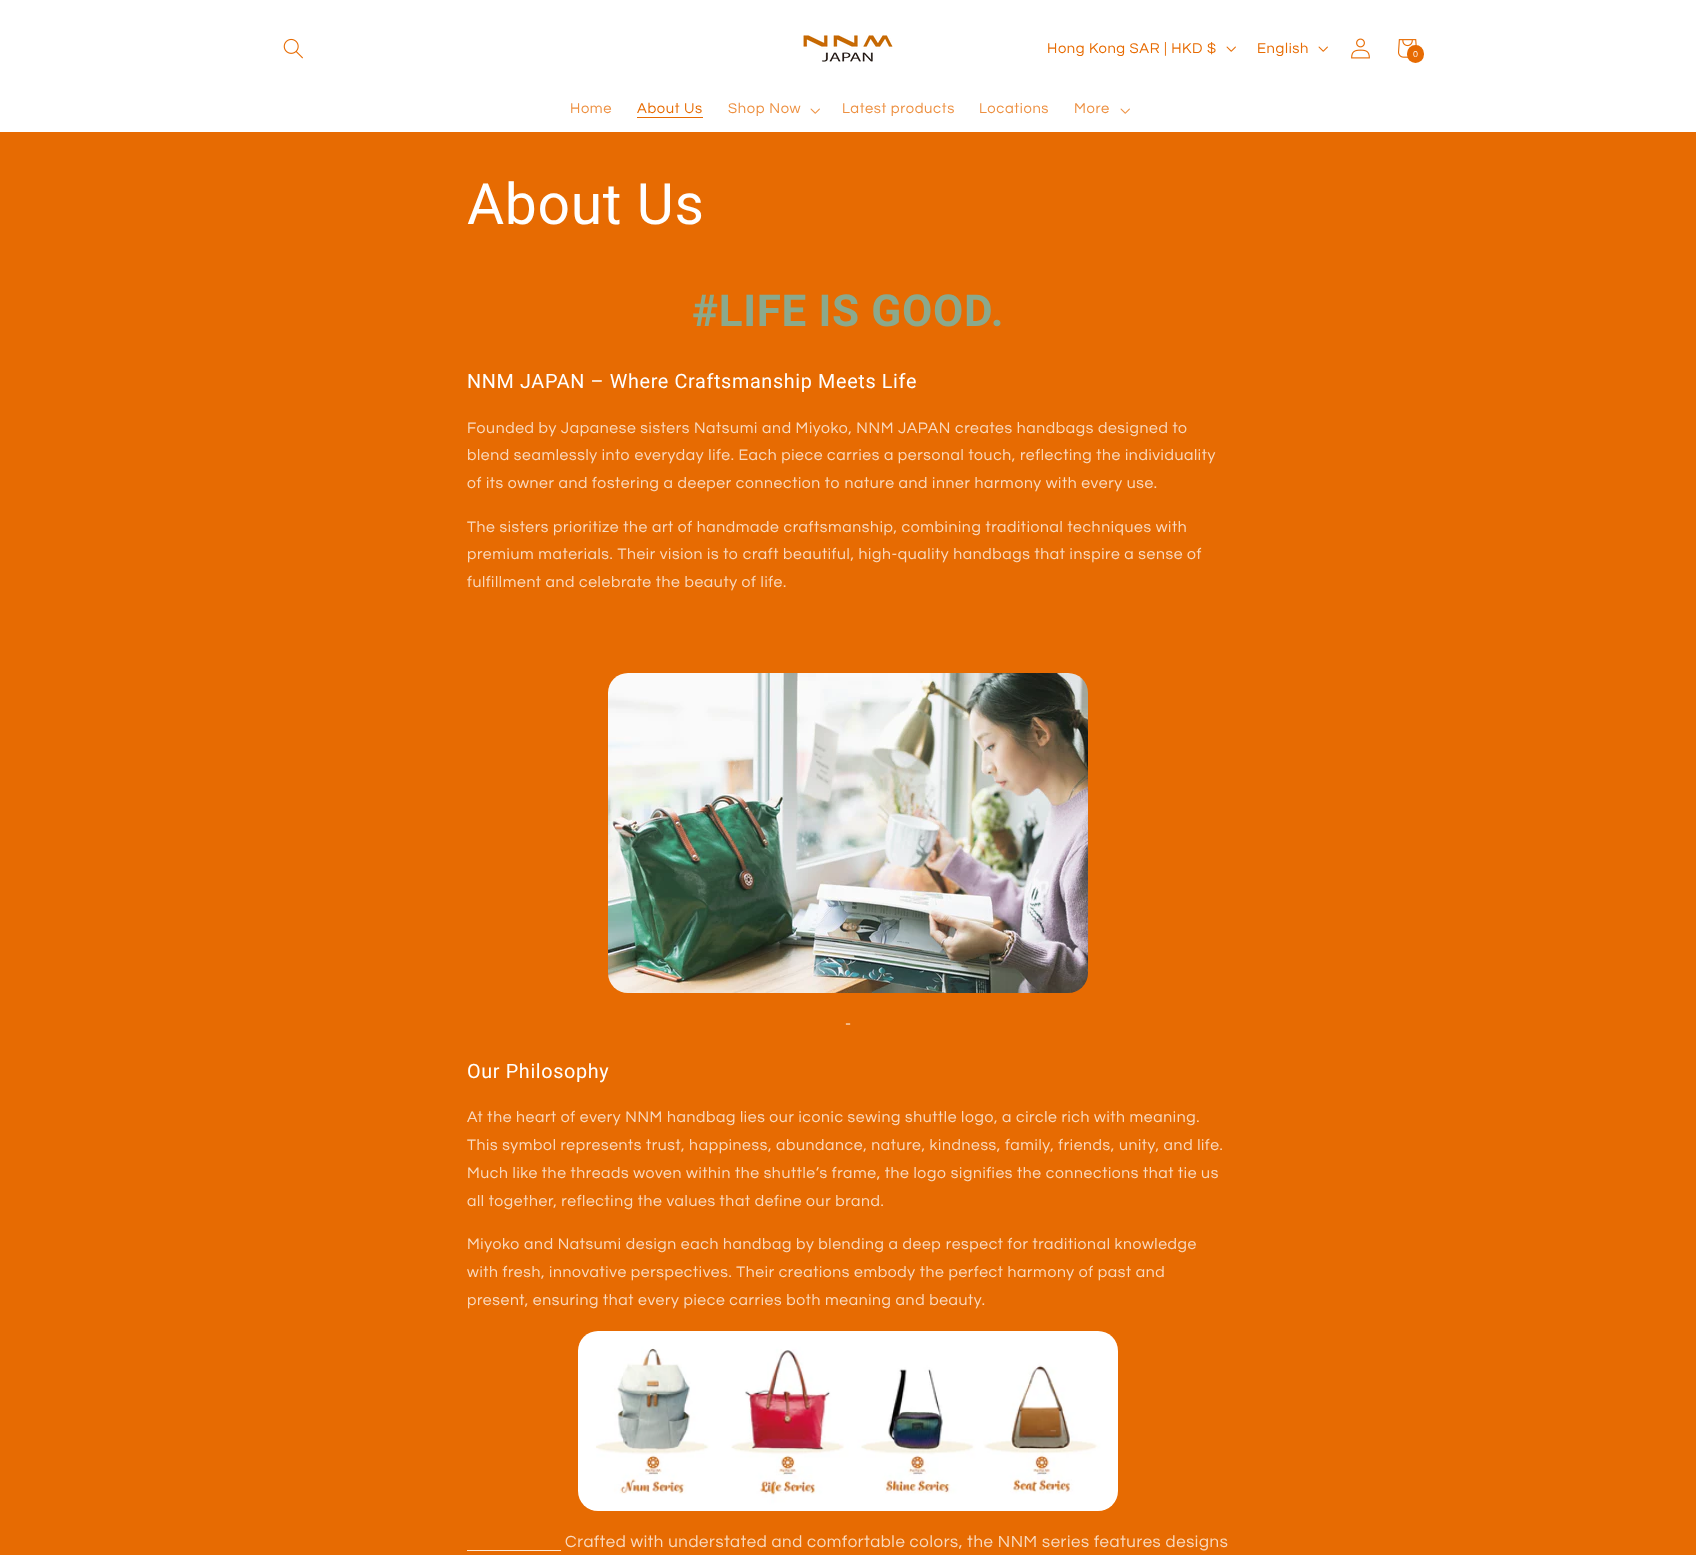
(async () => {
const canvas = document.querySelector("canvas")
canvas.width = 1696
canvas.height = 1555
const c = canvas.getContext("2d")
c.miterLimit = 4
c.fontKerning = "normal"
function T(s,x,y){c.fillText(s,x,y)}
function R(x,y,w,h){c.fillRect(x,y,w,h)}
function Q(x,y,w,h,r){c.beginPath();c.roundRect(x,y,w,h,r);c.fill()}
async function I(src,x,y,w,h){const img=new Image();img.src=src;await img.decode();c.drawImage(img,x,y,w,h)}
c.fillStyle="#e76b02"
R(0,0,1696,1555)
c.fillStyle="#fff"
R(0,0,1696,132)
await I("1.png",283,38,20,21)
await I("2.png",803,35,90,27)
c.letterSpacing="0.63px"
c.font="14.75px Questrial"
c.fillStyle="#e76b02"
T("Hong Kong SAR | HKD $",1047,53)
await I("3.png",1226,46,10,6)
T("English",1257,53)
await I("3.png",1318,46,10,6)
await I("4.png",1351,38,19,21)
await I("5.png",1398,39,19,19)
Q(1407,45,17,18,8.5)
c.font="9px Questrial"
c.fillStyle="#fff"
T("0",1413,57)
c.font="14.75px Questrial"
c.fillStyle="#ed9041"
T("Home",570,113)
c.fillStyle="#e76b02"
T("About Us",637,113)
R(637,117,66,1)
c.fillStyle="#ed9041"
T("Shop Now",728,113)
await I("6.png",810,108,10,6)
T("Latest products",842,113)
T("Locations",979,113)
T("More",1074,113)
await I("6.png",1120,108,10,6)
c.letterSpacing="0.65px"
c.font="57px Roboto"
c.fillStyle="#fff"
T("About Us",467,224)
c.font="bold 44px Roboto"
c.fillStyle="#8ba98c"
T("#LIFE IS GOOD.",692,326)
c.font="19.8px Roboto"
c.fillStyle="#fff"
T("NNM JAPAN – Where Craftsmanship Meets Life",467,388)
c.letterSpacing="0.63px"
c.font="15.75px Questrial"
c.fillStyle="#f9dac0"
T("Founded by Japanese sisters Natsumi and Miyoko, NNM JAPAN creates handbags designed to",467,433)
T("blend seamlessly into everyday life. Each piece carries a personal touch, reflecting the individuality",467,460)
T("of its owner and fostering a deeper connection to nature and inner harmony with every use.",467,488)
T("The sisters prioritize the art of handmade craftsmanship, combining traditional techniques with",467,532)
T("premium materials. Their vision is to craft beautiful, high-quality handbags that inspire a sense of",467,559)
T("fulfillment and celebrate the beauty of life.",467,587)
await I("7.png",608,673,480,320)
c.font="16.8px Questrial"
T("-",845,1029)
c.letterSpacing="0.65px"
c.font="19.8px Roboto"
c.fillStyle="#fff"
T("Our Philosophy",467,1078)
c.letterSpacing="0.63px"
c.font="15.75px Questrial"
c.fillStyle="#f9dac0"
T("At the heart of every NNM handbag lies our iconic sewing shuttle logo, a circle rich with meaning.",467,1122)
T("This symbol represents trust, happiness, abundance, nature, kindness, family, friends, unity, and life.",467,1150)
T("Much like the threads woven within the shuttle’s frame, the logo signifies the connections that tie us",467,1178)
T("all together, reflecting the values that define our brand.",467,1206)
T("Miyoko and Natsumi design each handbag by blending a deep respect for traditional knowledge",467,1249)
T("with fresh, innovative perspectives. Their creations embody the perfect harmony of past and",467,1277)
T("present, ensuring that every piece carries both meaning and beauty.",467,1305)
await I("8.png",578,1331,540,180)
c.fillStyle="#fbe9d9"
R(467,1550,94,1)
c.font="16.8px Questrial"
c.fillStyle="#f9dac0"
T("Crafted with understated and comfortable colors, the NNM series features designs",565,1547)
})()
